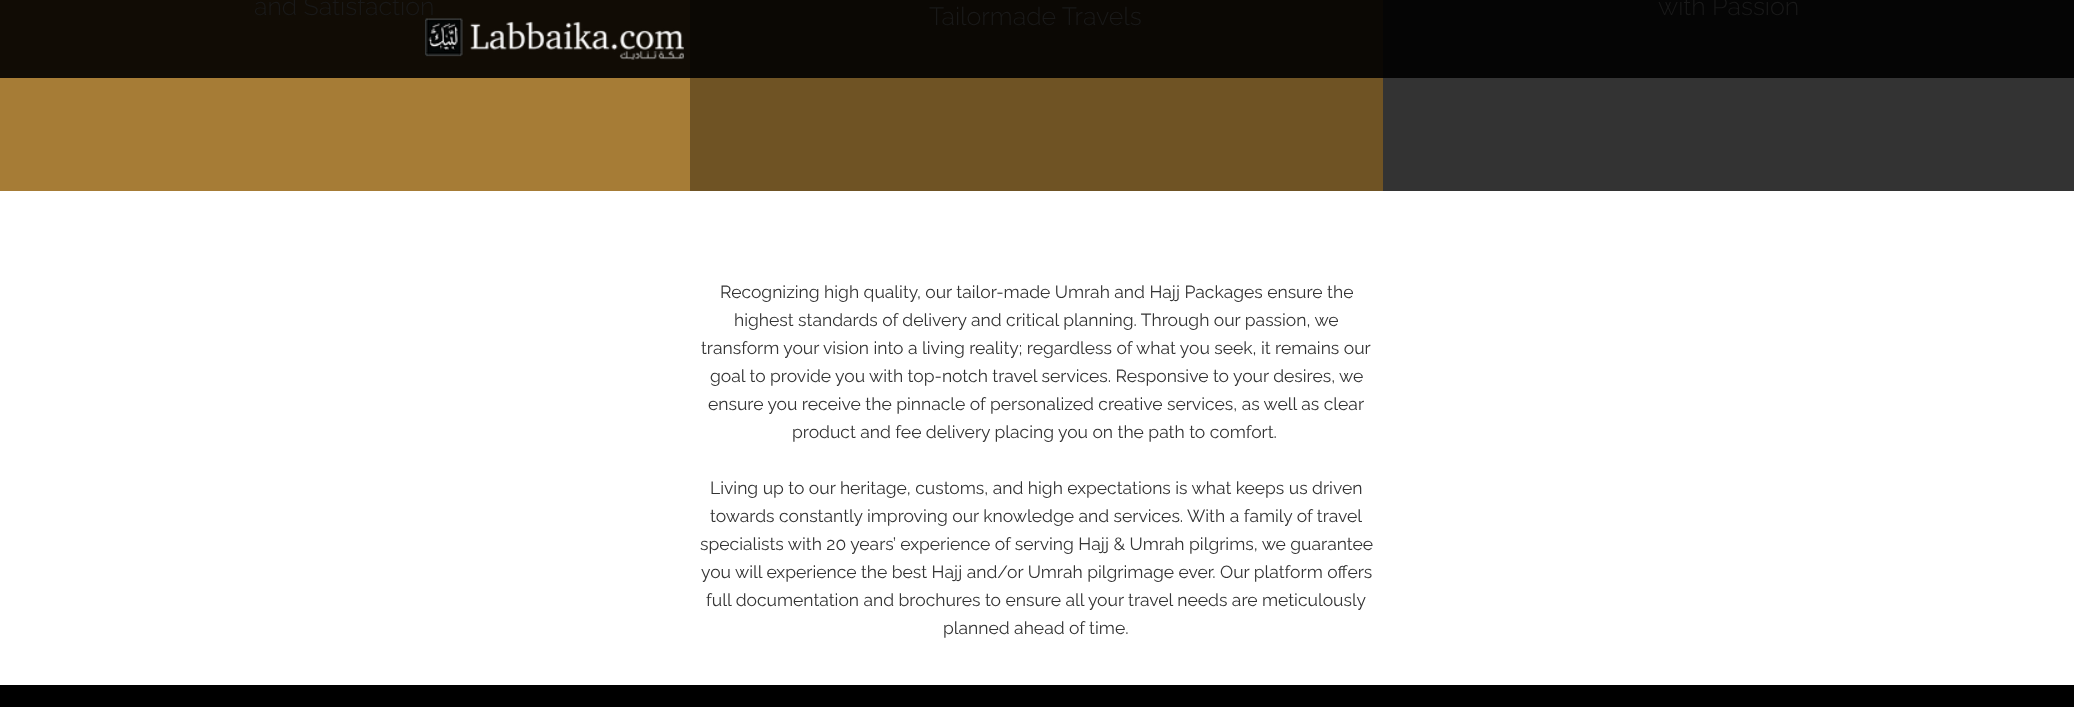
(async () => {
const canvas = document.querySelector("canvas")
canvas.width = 2074
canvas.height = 707
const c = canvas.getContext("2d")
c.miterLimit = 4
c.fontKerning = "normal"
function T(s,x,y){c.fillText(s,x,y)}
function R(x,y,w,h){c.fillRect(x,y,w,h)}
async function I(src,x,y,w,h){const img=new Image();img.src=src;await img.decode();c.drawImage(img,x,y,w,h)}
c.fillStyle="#fff"
R(0,0,2074,707)
c.fillStyle="#a67c36"
R(0,78,690,113)
c.fillStyle="#110c05"
R(0,0,690,78)
c.font="300 25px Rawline"
c.fillStyle="#191919"
T("and Satisfaction",254,15)
c.fillStyle="#6f5324"
R(690,78,693,113)
c.fillStyle="#0b0804"
R(690,0,693,78)
c.fillStyle="#191919"
T("Tailormade Travels",929,25)
c.fillStyle="#333"
R(1383,78,691,113)
c.fillStyle="#050505"
R(1383,0,691,78)
c.fillStyle="#191919"
T("with Passion",1658,15)
c.font="17.5px Raleway"
c.fillStyle="#333"
T("Recognizing high quality, our tailor-made Umrah and Hajj Packages ensure the",720,298)
T("highest standards of delivery and critical planning. Through our passion, we",734,326)
T("transform your vision into a living reality; regardless of what you seek, it remains our",701,354)
T("goal to provide you with top-notch travel services. Responsive to your desires, we",710,382)
T("ensure you receive the pinnacle of personalized creative services, as well as clear",708,410)
T("product and fee delivery placing you on the path to comfort.",792,438)
T("Living up to our heritage, customs, and high expectations is what keeps us driven",710,494)
T("towards constantly improving our knowledge and services. With a family of travel",710,522)
T("specialists with 20 years’ experience of serving Hajj & Umrah pilgrims, we guarantee",700,550)
T("you will experience the best Hajj and/or Umrah pilgrimage ever. Our platform offers",701,578)
T("full documentation and brochures to ensure all your travel needs are meticulously",706,606)
T("planned ahead of time.",943,634)
await I("1.png",425,18,259,42)
c.fillStyle="#000"
R(0,685,2074,22)
})()
